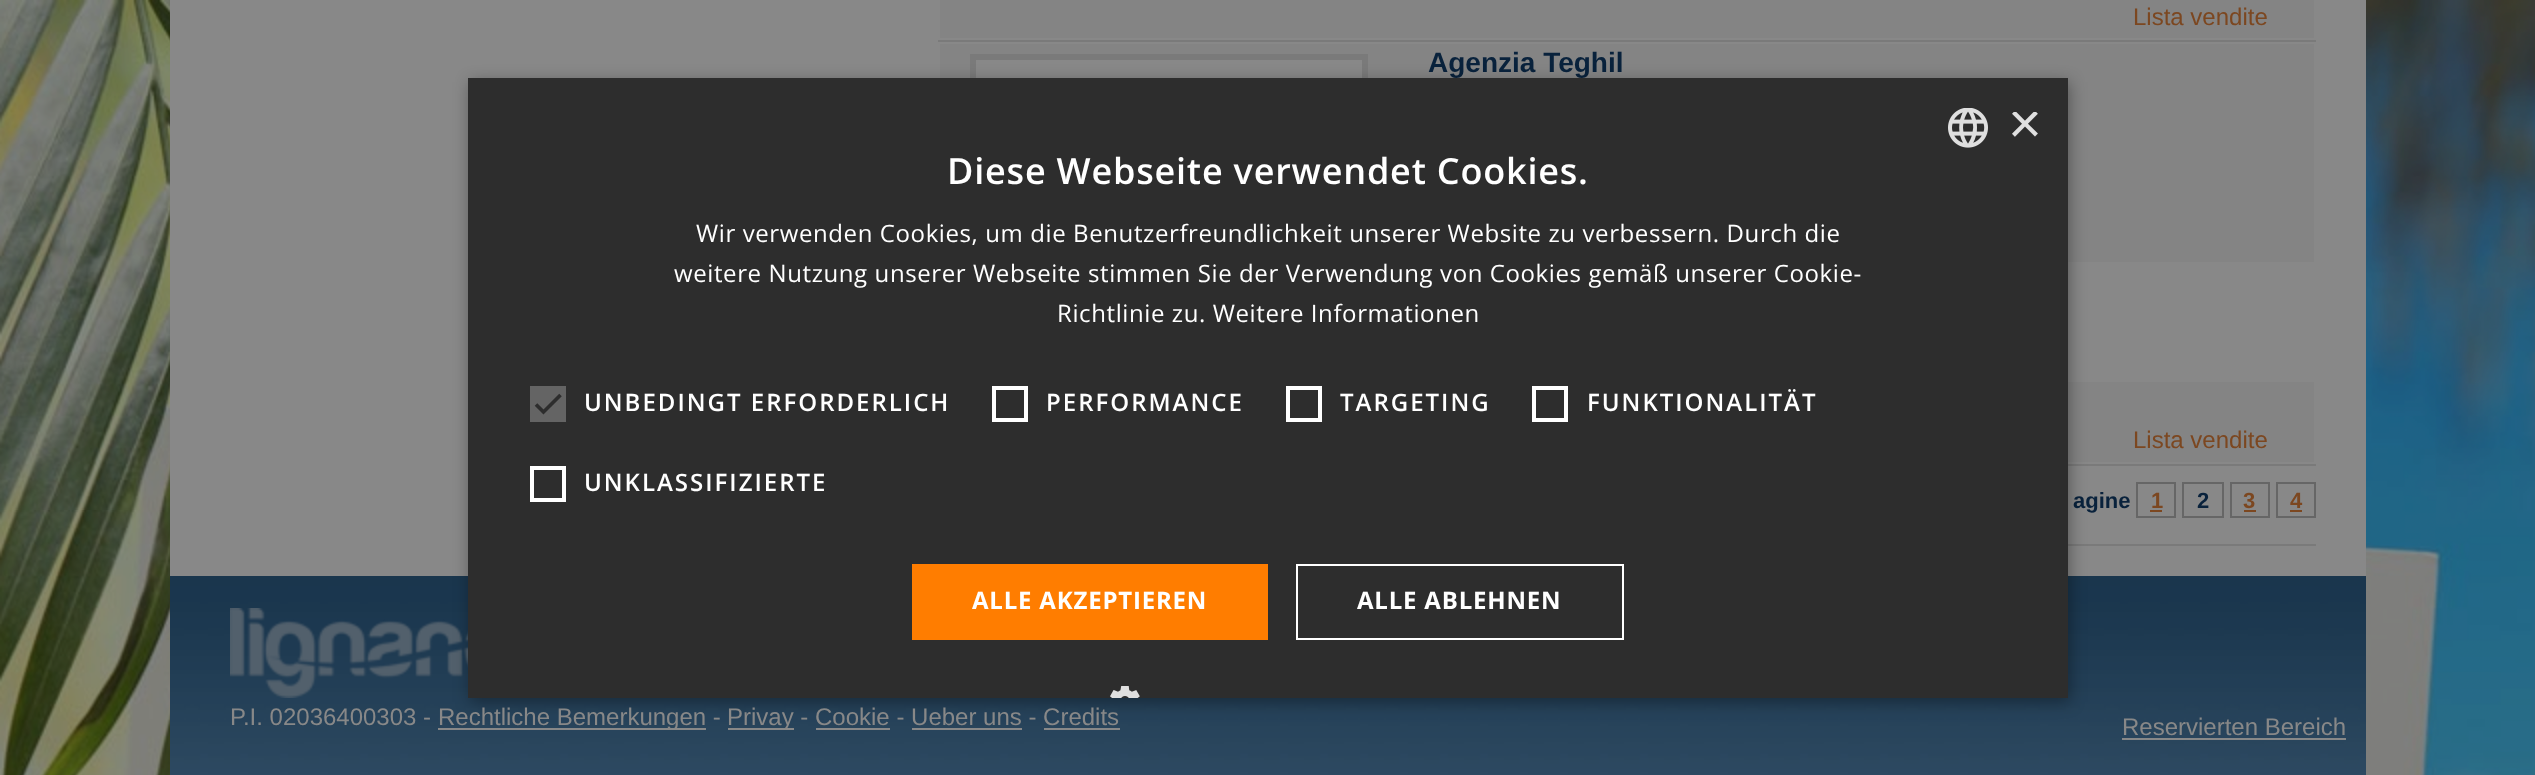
(async () => {
const canvas = document.querySelector("canvas")
canvas.width = 2535
canvas.height = 775
const c = canvas.getContext("2d")
c.miterLimit = 4
c.fontKerning = "normal"
function T(s,x,y){c.fillText(s,x,y)}
function R(x,y,w,h){c.fillRect(x,y,w,h)}
async function I(src,x,y,w,h){const img=new Image();img.src=src;await img.decode();c.drawImage(img,x,y,w,h)}
let path
c.fillStyle="#fff"
R(0,0,2535,775)
await I("1.png",0,0,2535,775)
c.fillStyle="#888"
R(170,0,2196,576)
c.fillStyle="#7a7a7a"
R(938,40,1378,2)
c.fillStyle="#848484"
R(940,0,1374,38)
c.font="24px Liberation Sans"
c.fillStyle="#7c4720"
T("Lista vendite",2133,25)
c.fillStyle="#7a7a7a"
R(2068,464,248,2)
c.fillStyle="#848484"
R(940,44,458,34)
c.strokeStyle="#7a7a7a"
c.lineWidth=6
c.strokeRect(973,57,392,312)
await I("2.png",976,60,386,18)
R(1398,44,916,218)
c.font="bold 28px Liberation Sans"
c.fillStyle="#09223c"
T("Agenzia Teghil",1428,72)
c.fillStyle="#848484"
R(2068,382,246,80)
c.font="24px Liberation Sans"
c.fillStyle="#7c4720"
T("Lista vendite",2133,448)
c.fillStyle="#7a7a7a"
R(2068,544,248,2)
c.font="bold 22px Liberation Sans"
c.fillStyle="#09223c"
T("agine",2073,508)
c.strokeStyle="#666"
c.lineWidth=2
c.strokeRect(2137,483,38,34)
c.fillStyle="#7c4720"
T("1",2151,508)
R(2150,510,12,2)
c.strokeRect(2183,483,40,34)
c.fillStyle="#09223c"
T("2",2197,508)
c.strokeRect(2231,483,38,34)
c.fillStyle="#7c4720"
T("3",2243,508)
R(2244,510,12,2)
c.strokeRect(2277,483,38,34)
T("4",2290,508)
R(2290,510,12,2)
await I("5.png",170,576,2196,199)
await I("6.png",230,608,238,90)
c.fillStyle="#00000059"
c.filter="blur(8px)"
c.beginPath()
c.rect(470,82,1600,620)
c.fill()
c.filter="none"
c.fillStyle="#2d2d2d"
R(468,78,1600,620)
await I("3.png",1948,108,40,40)
c.save()
c.beginPath()
c.rect(2008,112,30,30)
c.clip()
c.font="58px Liberation Sans"
c.fillStyle="#e0e0e0"
T("×",2008,143)
c.restore()
c.letterSpacing="0.8px"
c.font="600 36px Open Sans"
c.fillStyle="#fff"
T("Diese Webseite verwendet Cookies.",947,184)
c.letterSpacing="0.6px"
c.font="24px Open Sans"
T("Wir verwenden Cookies, um die Benutzerfreundlichkeit unserer Website zu verbessern. Durch die",696,242)
T("weitere Nutzung unserer Webseite stimmen Sie der Verwendung von Cookies gemäß unserer Cookie-",674,282)
T("Richtlinie zu. Weitere Informationen",1057,322)
c.fillStyle="#646464"
R(530,386,36,36)
path = new Path2D("M536 404.5l7.5 7.5l17-17")
c.strokeStyle="#2d2d2d"
c.lineWidth=3.6
c.stroke(path)
c.letterSpacing="2px"
c.font="600 24px Open Sans"
c.fillStyle="#fff"
T("UNBEDINGT ERFORDERLICH",584,411)
c.strokeStyle="#fff"
c.lineWidth=4
c.strokeRect(994,388,32,32)
T("PERFORMANCE",1046,411)
c.strokeRect(1288,388,32,32)
T("TARGETING",1340,411)
c.strokeRect(1534,388,32,32)
T("FUNKTIONALITÄT",1587,411)
c.strokeRect(532,468,32,32)
T("UNKLASSIFIZIERTE",584,491)
c.fillStyle="#ff7d00"
R(912,564,356,76)
c.letterSpacing="0.8px"
c.font="bold 24px Open Sans"
c.fillStyle="#fff"
T("ALLE AKZEPTIEREN",972,609)
c.lineWidth=2
c.strokeRect(1297,565,326,74)
T("ALLE ABLEHNEN",1357,609)
await I("4.png",1110,686,30,12)
c.letterSpacing="0px"
c.font="24px Liberation Sans"
c.fillStyle="#888"
T("P.I. 02036400303 -",230,725)
R(438,728,268,2)
T("Rechtliche Bemerkungen -",438,725)
R(728,728,66,2)
T("Privay - Cookie - Ueber uns - Credits",727,725)
R(816,728,74,2)
R(912,728,110,2)
R(1044,728,76,2)
T("Reservierten Bereich",2122,735)
R(2122,738,224,2)
})()
